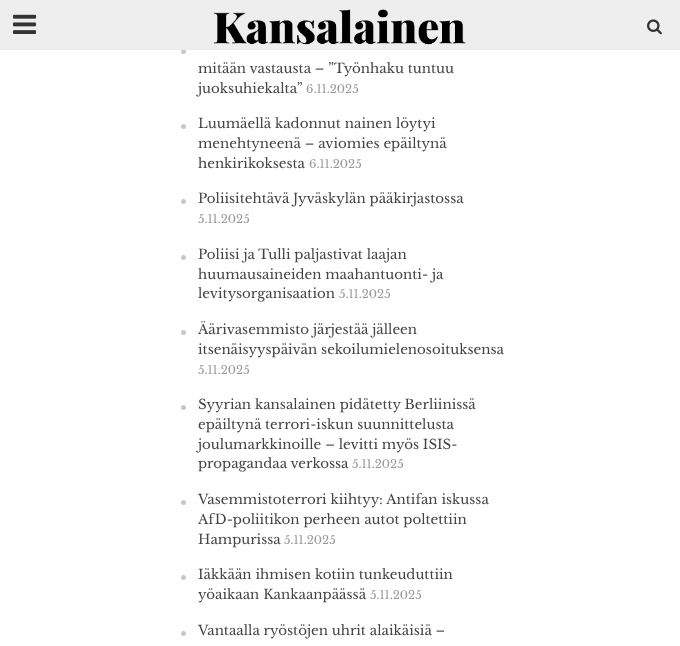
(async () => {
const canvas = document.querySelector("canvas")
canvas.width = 680
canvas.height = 646
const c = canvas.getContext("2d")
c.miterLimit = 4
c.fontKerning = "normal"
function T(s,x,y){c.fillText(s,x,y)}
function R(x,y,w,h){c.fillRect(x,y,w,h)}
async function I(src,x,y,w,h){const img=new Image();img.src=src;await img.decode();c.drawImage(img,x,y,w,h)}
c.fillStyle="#fff"
R(0,0,680,646)
c.fillStyle="#c7c7c7"
c.beginPath()
c.arc(183.5,51.5,2.5,0,7)
c.fill()
c.fillStyle="#eee"
R(0,0,680,50)
await I("1.png",13,14,24,20)
await I("2.png",213,9,253,36)
await I("3.png",647,19,15,16)
c.font="13.4px Libre Baskerville"
c.fillStyle="#444"
T("mitään vastausta – ”Työnhaku tuntuu",198,73)
T("juoksuhiekalta”",198,93)
c.font="11.5px Libre Baskerville"
c.fillStyle="#999"
T("6.11.2025",306,93)
c.fillStyle="#c7c7c7"
c.beginPath()
c.arc(183.5,126.5,2.5,0,7)
c.fill()
c.font="13.4px Libre Baskerville"
c.fillStyle="#444"
T("Luumäellä kadonnut nainen löytyi",198,128)
T("menehtyneenä – aviomies epäiltynä",198,148)
T("henkirikoksesta",198,168)
c.font="11.5px Libre Baskerville"
c.fillStyle="#999"
T("6.11.2025",309,168)
c.fillStyle="#c7c7c7"
c.beginPath()
c.arc(183.5,201.5,2.5,0,7)
c.fill()
c.font="13.4px Libre Baskerville"
c.fillStyle="#444"
T("Poliisitehtävä Jyväskylän pääkirjastossa",198,203)
c.font="11.5px Libre Baskerville"
c.fillStyle="#999"
T("5.11.2025",198,223)
c.fillStyle="#c7c7c7"
c.beginPath()
c.arc(183.5,257.5,2.5,0,7)
c.fill()
c.font="13.4px Libre Baskerville"
c.fillStyle="#444"
T("Poliisi ja Tulli paljastivat laajan",198,259)
T("huumausaineiden maahantuonti- ja",198,279)
T("levitysorganisaation",198,298)
c.font="11.5px Libre Baskerville"
c.fillStyle="#999"
T("5.11.2025",339,298)
c.fillStyle="#c7c7c7"
c.beginPath()
c.arc(183.5,332.5,2.5,0,7)
c.fill()
c.font="13.4px Libre Baskerville"
c.fillStyle="#444"
T("Äärivasemmisto järjestää jälleen",198,334)
T("itsenäisyyspäivän sekoilumielenosoituksensa",198,354)
c.font="11.5px Libre Baskerville"
c.fillStyle="#999"
T("5.11.2025",198,374)
c.fillStyle="#c7c7c7"
c.beginPath()
c.arc(183.5,407.5,2.5,0,7)
c.fill()
c.font="13.4px Libre Baskerville"
c.fillStyle="#444"
T("Syyrian kansalainen pidätetty Berliinissä",198,409)
T("epäiltynä terrori-iskun suunnittelusta",198,429)
T("joulumarkkinoille – levitti myös ISIS-",198,449)
T("propagandaa verkossa",198,468)
c.font="11.5px Libre Baskerville"
c.fillStyle="#999"
T("5.11.2025",352,468)
c.fillStyle="#c7c7c7"
c.beginPath()
c.arc(183.5,502.5,2.5,0,7)
c.fill()
c.font="13.4px Libre Baskerville"
c.fillStyle="#444"
T("Vasemmistoterrori kiihtyy: Antifan iskussa",198,504)
T("AfD-poliitikon perheen autot poltettiin",198,524)
T("Hampurissa",198,544)
c.font="11.5px Libre Baskerville"
c.fillStyle="#999"
T("5.11.2025",284,544)
c.fillStyle="#c7c7c7"
c.beginPath()
c.arc(183.5,577.5,2.5,0,7)
c.fill()
c.font="13.4px Libre Baskerville"
c.fillStyle="#444"
T("Iäkkään ihmisen kotiin tunkeuduttiin",198,579)
T("yöaikaan Kankaanpäässä",198,599)
c.font="11.5px Libre Baskerville"
c.fillStyle="#999"
T("5.11.2025",370,599)
c.fillStyle="#c7c7c7"
c.beginPath()
c.arc(183.5,633.5,2.5,0,7)
c.fill()
c.font="13.4px Libre Baskerville"
c.fillStyle="#444"
T("Vantaalla ryöstöjen uhrit alaikäisiä –",198,635)
})()
